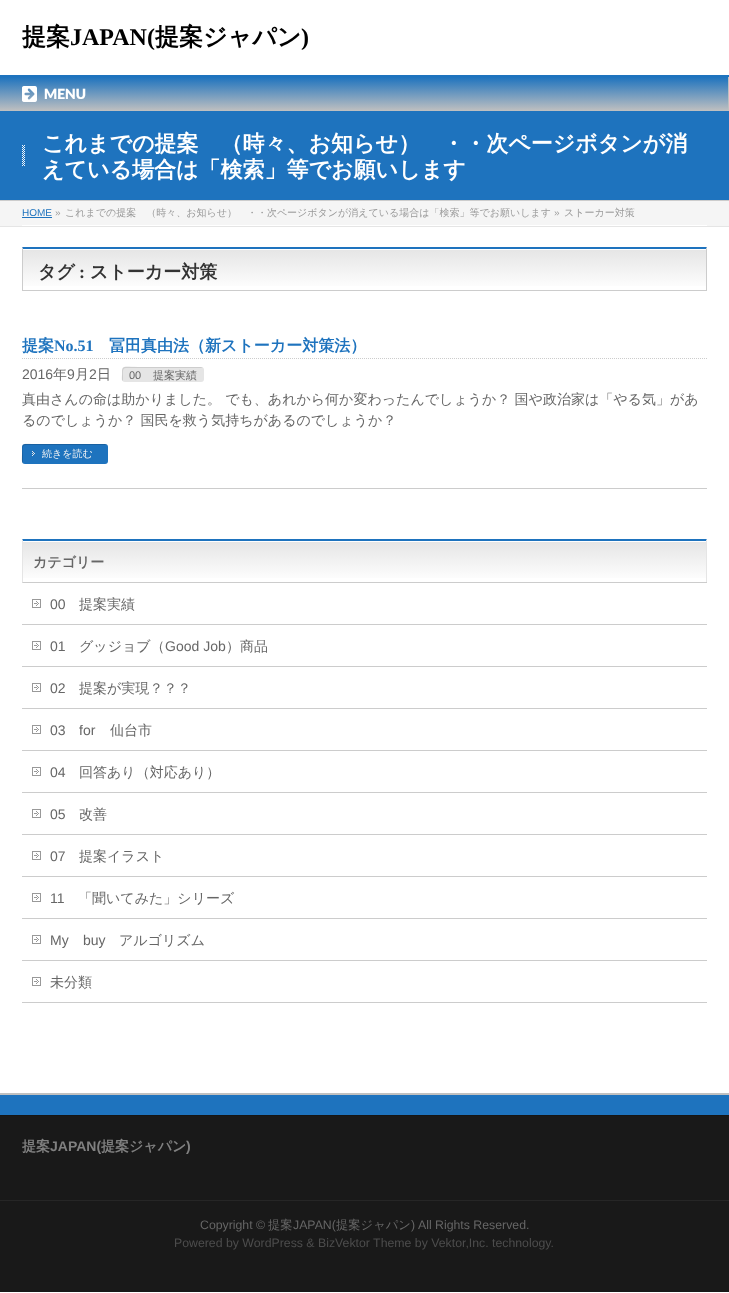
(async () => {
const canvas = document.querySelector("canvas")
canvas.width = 729
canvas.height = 1293
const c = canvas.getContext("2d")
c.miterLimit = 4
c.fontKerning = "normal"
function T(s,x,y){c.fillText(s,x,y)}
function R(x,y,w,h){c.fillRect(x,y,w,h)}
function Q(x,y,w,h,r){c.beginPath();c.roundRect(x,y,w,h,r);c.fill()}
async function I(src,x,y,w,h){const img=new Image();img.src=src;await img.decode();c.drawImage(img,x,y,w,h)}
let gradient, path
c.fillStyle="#fff"
R(0,0,729,1293)
c.font="bold 24px WenQuanYi Zen Hei"
c.fillStyle="#000"
T("提案",22,45)
c.font="bold 24px Liberation Serif"
T("JAPAN(",70,45)
c.font="bold 24px WenQuanYi Zen Hei"
T("提案ジャパン",155,45)
c.font="bold 24px Liberation Serif"
T(")",301,45)
c.fillStyle="#1e73be"
R(0,75,729,2)
gradient = c.createLinearGradient(364,77,364,111)
gradient.addColorStop(0,"#1e73be")
gradient.addColorStop(1,"#c0c0c0")
c.fillStyle = gradient
R(0,77,728,34)
c.fillStyle="#c0c0c0"
R(728,77,1,34)
await I("1.png",22,86,15,16)
c.font="900 14px Lato"
c.fillStyle="#fff"
T("MENU",44,99)
c.fillStyle="#1e73be"
R(0,111,729,89)
c.fillStyle="#ccc"
R(0,200,729,1)
await I("2.png",22,145,3,21)
c.font="bold 22px WenQuanYi Zen Hei"
c.fillStyle="#fff"
T("これまでの提案　（時々、お知らせ）　・・次ページボタンが消",42,151)
T("えている場合は「検索」等でお願いします",42,177)
c.fillStyle="#f5f5f5"
R(0,201,729,25)
c.fillStyle="#e5e5e5"
R(0,226,729,1)
c.fillStyle="#fff"
R(22,225,685,1)
c.font="10px Liberation Sans"
c.fillStyle="#1e73be"
T("HOME",22,216)
R(22,217,30,1)
c.fillStyle="#999"
T("»",55,216)
c.font="500 10px WenQuanYi Zen Hei"
T("これまでの提案　（時々、お知らせ）　・・次ページボタンが消えている場合は「検索」等でお願いします",65,216)
c.font="10px Liberation Sans"
T("»",554,216)
c.font="500 10px WenQuanYi Zen Hei"
T("ストーカー対策",564,216)
gradient = c.createLinearGradient(23,249,23,290)
gradient.addColorStop(0,"#e5e5e5")
gradient.addColorStop(1,"#fff")
c.fillStyle = gradient
R(23,250,683,36)
c.fillStyle="#1e73be"
path = new Path2D("M22 247h685l-1 2h-683z")
c.fill(path)
c.fillStyle="#ccc"
path = new Path2D("M707 247v44l-1-1v-41z")
c.fill(path)
R(22,290,685,1)
path = new Path2D("M22 291v-44l1 2v41z")
c.fill(path)
c.font="bold 18px WenQuanYi Zen Hei"
c.fillStyle="#333"
T("タグ",38,278)
c.font="bold 18px Liberation Serif"
T(":",79,278)
c.font="bold 18px WenQuanYi Zen Hei"
T("ストーカー対策",90,278)
c.fillStyle="#ccc"
R(22,488,685,1)
path = new Path2D("M22 358.5h685")
c.strokeStyle="#ccc"
c.setLineDash([1,1])
c.stroke(path)
c.font="bold 16px WenQuanYi Zen Hei"
c.fillStyle="#1e73be"
T("提案",22,351)
c.font="bold 16px Liberation Serif"
T("No.51",54,351)
c.font="bold 16px WenQuanYi Zen Hei"
T("冨田真由法（新ストーカー対策法）",109,351)
c.font="14px Liberation Sans"
c.fillStyle="#666"
T("2016",22,379)
c.font="500 14px WenQuanYi Zen Hei"
T("年",53,379)
c.font="14px Liberation Sans"
T("9",67,379)
c.font="500 14px WenQuanYi Zen Hei"
T("月",75,379)
c.font="14px Liberation Sans"
T("2",89,379)
c.font="500 14px WenQuanYi Zen Hei"
T("日",97,379)
c.fillStyle="#e5e5e5"
Q(122,367,82,15,3)
c.fillStyle="#0000001a"
path = new Path2D("M126 368h77l-2-1h-63c-13 0-16-3-16 7c0 3-1 6 1 7v-5c0-3-1-8 3-8z")
c.fill(path)
c.font="11px Liberation Sans"
c.fillStyle="#666"
T("00",129,379)
c.font="500 11px WenQuanYi Zen Hei"
T("提案実績",153,379)
c.font="500 14px WenQuanYi Zen Hei"
T("真由さんの命は助かりました。 でも、あれから何か変わったんでしょうか？ 国や政治家は「やる気」があ",22,404)
T("るのでしょうか？ 国民を救う気持ちがあるのでしょうか？",22,425)
c.fillStyle="#1e73be"
Q(22,444,86,20,3)
await I("3.png",32,451,3,5)
c.fillStyle="#00000026"
path = new Path2D("M26 445h81l-2-1h-67c-16 0-16-3-16 10c0 2-1 8 1 9v-8c0-3-2-10 3-10z")
c.fill(path)
c.font="500 10px WenQuanYi Zen Hei"
c.fillStyle="#f5f5f5"
T("続きを読む",42,457)
gradient = c.createLinearGradient(23,541,23,582)
gradient.addColorStop(0,"#e5e5e5")
gradient.addColorStop(1,"#fff")
c.fillStyle = gradient
R(23,542,683,36)
c.fillStyle="#1e73be"
path = new Path2D("M22 539h685l-1 2h-683z")
c.fill(path)
c.fillStyle="#e5e5e5"
path = new Path2D("M707 539v44l-1-1v-41z")
c.fill(path)
c.fillStyle="#ccc"
R(22,582,685,1)
c.fillStyle="#e5e5e5"
path = new Path2D("M22 583v-44l1 2v41z")
c.fill(path)
c.font="bold 14px WenQuanYi Zen Hei"
c.fillStyle="#666"
T("カテゴリー",33,567)
c.fillStyle="#ccc"
R(22,624,685,1)
await I("4.png",32,599,9,9)
c.font="14px Liberation Sans"
c.fillStyle="#666"
T("00",50,609)
c.font="500 14px WenQuanYi Zen Hei"
T("提案実績",79,609)
c.fillStyle="#ccc"
R(22,666,685,1)
await I("4.png",32,641,9,9)
c.font="14px Liberation Sans"
c.fillStyle="#666"
T("01",50,651)
c.font="500 14px WenQuanYi Zen Hei"
T("グッジョブ（",79,651)
c.font="14px Liberation Sans"
T("Good Job",165,651)
c.font="500 14px WenQuanYi Zen Hei"
T("）商品",226,651)
c.fillStyle="#ccc"
R(22,708,685,1)
await I("4.png",32,683,9,9)
c.font="14px Liberation Sans"
c.fillStyle="#666"
T("02",50,693)
c.font="500 14px WenQuanYi Zen Hei"
T("提案が実現？？？",79,693)
c.fillStyle="#ccc"
R(22,750,685,1)
await I("4.png",32,725,9,9)
c.font="14px Liberation Sans"
c.fillStyle="#666"
T("03",50,735)
T("for",79,735)
c.font="500 14px WenQuanYi Zen Hei"
T("仙台市",110,735)
c.fillStyle="#ccc"
R(22,792,685,1)
await I("4.png",32,767,9,9)
c.font="14px Liberation Sans"
c.fillStyle="#666"
T("04",50,777)
c.font="500 14px WenQuanYi Zen Hei"
T("回答あり（対応あり）",79,777)
c.fillStyle="#ccc"
R(22,834,685,1)
await I("4.png",32,809,9,9)
c.font="14px Liberation Sans"
c.fillStyle="#666"
T("05",50,819)
c.font="500 14px WenQuanYi Zen Hei"
T("改善",79,819)
c.fillStyle="#ccc"
R(22,876,685,1)
await I("4.png",32,851,9,9)
c.font="14px Liberation Sans"
c.fillStyle="#666"
T("07",50,861)
c.font="500 14px WenQuanYi Zen Hei"
T("提案イラスト",79,861)
c.fillStyle="#ccc"
R(22,918,685,1)
await I("4.png",32,893,9,9)
c.font="14px Liberation Sans"
c.fillStyle="#666"
T("11",50,903)
c.font="500 14px WenQuanYi Zen Hei"
T("「聞いてみた」シリーズ",78,903)
c.fillStyle="#ccc"
R(22,960,685,1)
await I("4.png",32,935,9,9)
c.font="14px Liberation Sans"
c.fillStyle="#666"
T("My",50,945)
T("buy",83,945)
c.font="500 14px WenQuanYi Zen Hei"
T("アルゴリズム",119,945)
c.fillStyle="#ccc"
R(22,1002,685,1)
await I("4.png",32,977,9,9)
c.fillStyle="#666"
T("未分類",50,987)
c.fillStyle="#1e73be"
R(0,1095,729,20)
c.fillStyle="#c0c0c0"
R(0,1093,729,2)
c.fillStyle="#191919"
R(0,1116,729,84)
c.fillStyle="#151515"
R(0,1115,729,1)
c.font="bold 14px WenQuanYi Zen Hei"
c.fillStyle="#808080"
T("提案",22,1151)
c.font="bold 14px Liberation Sans"
T("JAPAN(",50,1151)
c.font="bold 14px WenQuanYi Zen Hei"
T("提案ジャパン",101,1151)
c.font="bold 14px Liberation Sans"
T(")",186,1151)
c.fillStyle="#191919"
R(0,1201,729,91)
c.fillStyle="#262626"
R(0,1200,729,1)
c.font="12.3px Liberation Sans"
c.fillStyle="#666"
T("Copyright ©",200,1229)
c.font="500 12.3px WenQuanYi Zen Hei"
T("提案",268,1229)
c.font="12.3px Liberation Sans"
T("JAPAN(",293,1229)
c.font="500 12.3px WenQuanYi Zen Hei"
T("提案ジャパン",336,1229)
c.font="12.3px Liberation Sans"
T(")",411,1229)
T("All Rights Reserved.",418,1229)
c.fillStyle="#4d4d4d"
T("Powered by WordPress & BizVektor Theme by Vektor,Inc. technology.",174,1247)
})()
